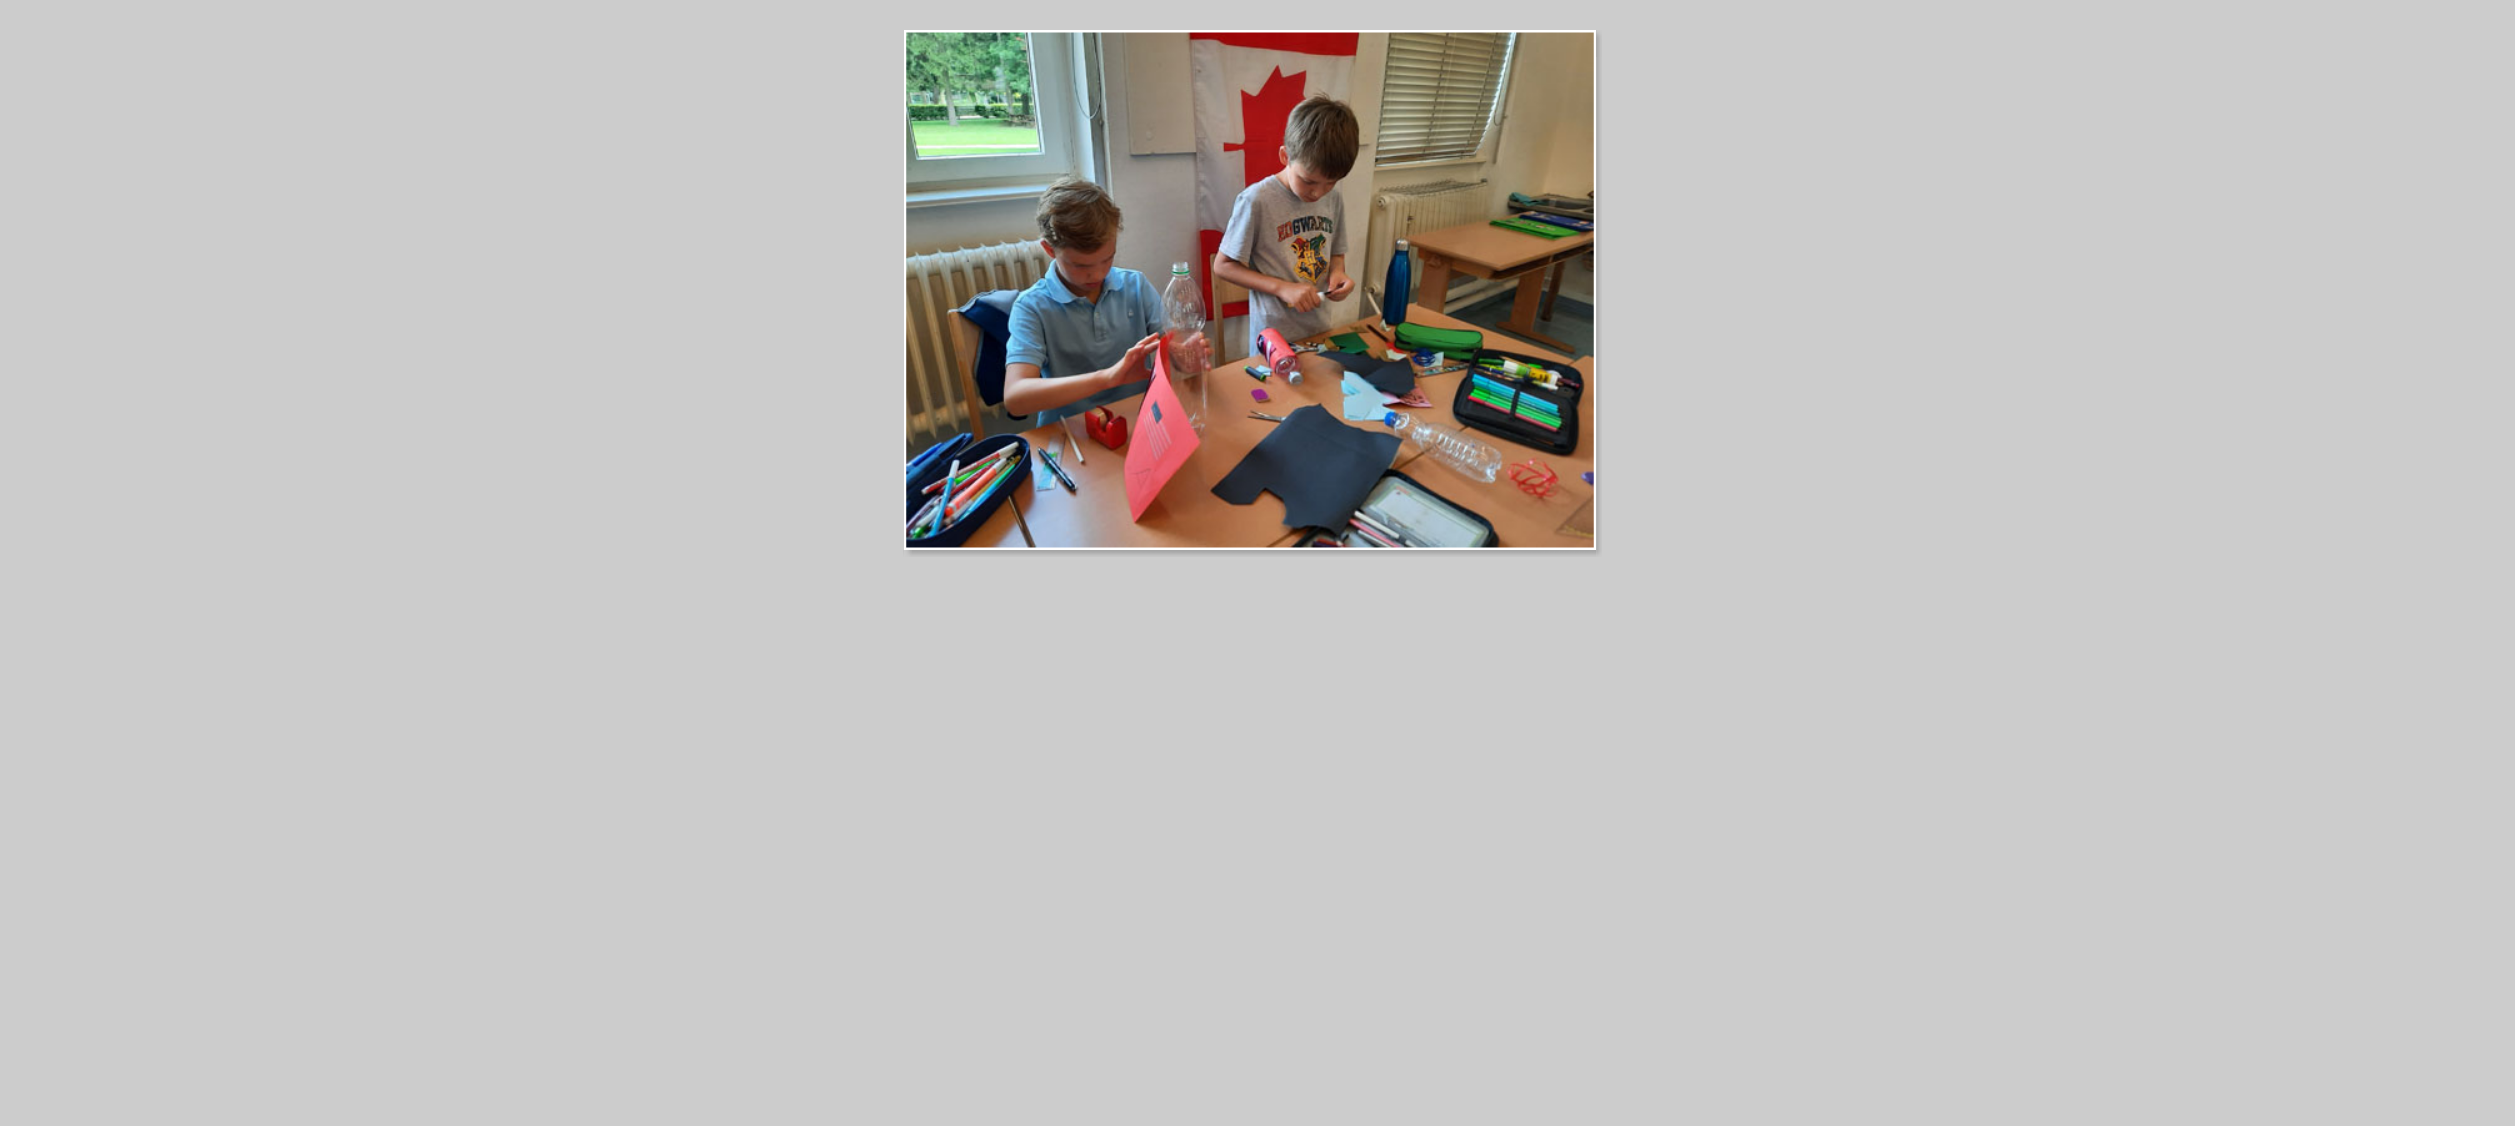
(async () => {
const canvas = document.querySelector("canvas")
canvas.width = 2515
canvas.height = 1126
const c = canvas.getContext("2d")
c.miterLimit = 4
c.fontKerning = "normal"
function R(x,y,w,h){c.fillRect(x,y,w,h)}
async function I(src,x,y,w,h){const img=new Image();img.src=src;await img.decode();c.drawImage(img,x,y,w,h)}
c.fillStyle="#ccc"
R(0,0,2515,1126)
c.strokeStyle="#fff"
c.lineWidth=3
c.strokeRect(905.5,31.5,689,517)
await I("1.png",906,32,688,516)
await I("2.png",1596,30,6,520)
await I("3.png",1596,30,6,27)
await I("4.png",903,550,694,7)
await I("5.png",904,550,8,7)
await I("6.png",1596,550,6,7)
})()
